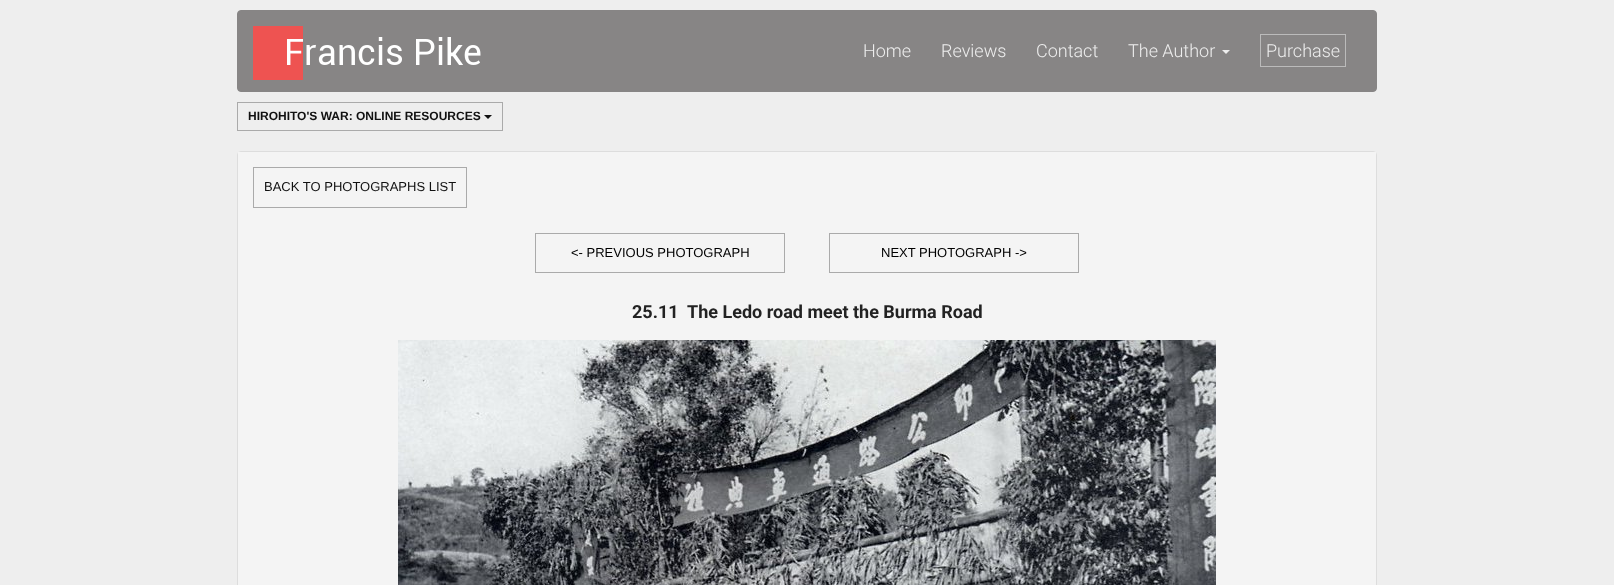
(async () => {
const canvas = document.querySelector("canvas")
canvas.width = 1614
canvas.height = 585
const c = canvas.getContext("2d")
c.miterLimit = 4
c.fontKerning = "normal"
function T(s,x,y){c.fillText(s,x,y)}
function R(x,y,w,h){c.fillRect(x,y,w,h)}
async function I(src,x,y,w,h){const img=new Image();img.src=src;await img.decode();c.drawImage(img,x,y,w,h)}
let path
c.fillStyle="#eee"
R(0,0,1614,585)
c.fillStyle="#878585"
c.beginPath()
c.roundRect(237.5,10.5,1139,81,3.5)
c.fill()
c.strokeStyle="#878585"
c.stroke()
await I("1.png",253,26,228,54)
c.font="300 18px Roboto"
c.fillStyle="#eee"
T("Home",863,57)
T("Reviews",941,57)
T("Contact",1036,57)
T("The Author",1128,57)
path = new Path2D("M1222 50h8l-4 4z")
c.fill(path)
c.strokeStyle="#bbb"
c.strokeRect(1260.5,34.5,85,32)
T("Purchase",1266,57)
c.strokeStyle="#aaa"
c.strokeRect(237.5,102.5,265,28)
c.font="bold 12px Liberation Sans"
c.fillStyle="#111"
T("HIROHITO'S WAR: ONLINE RESOURCES",248,120)
path = new Path2D("M484 115h8l-4 4z")
c.fill(path)
c.beginPath()
c.roundRect(237.5,151.5,1139,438,3.5)
c.strokeStyle="#ddd"
c.stroke()
c.fillStyle="#f4f4f4"
R(238,152,1138,433)
c.strokeStyle="#aaa"
c.strokeRect(253.5,167.5,213,40)
c.font="13px Liberation Sans"
c.fillStyle="#111"
T("BACK TO PHOTOGRAPHS LIST",264,191)
c.strokeRect(535.5,233.5,249,39)
c.fillStyle="#000"
T("<- PREVIOUS PHOTOGRAPH",571,257)
c.strokeRect(829.5,233.5,249,39)
T("NEXT PHOTOGRAPH ->",881,257)
c.font="bold 18px Roboto"
c.fillStyle="#222"
T("25.11  The Ledo road meet the Burma Road",632,318)
await I("2.png",398,340,818,245)
})()
